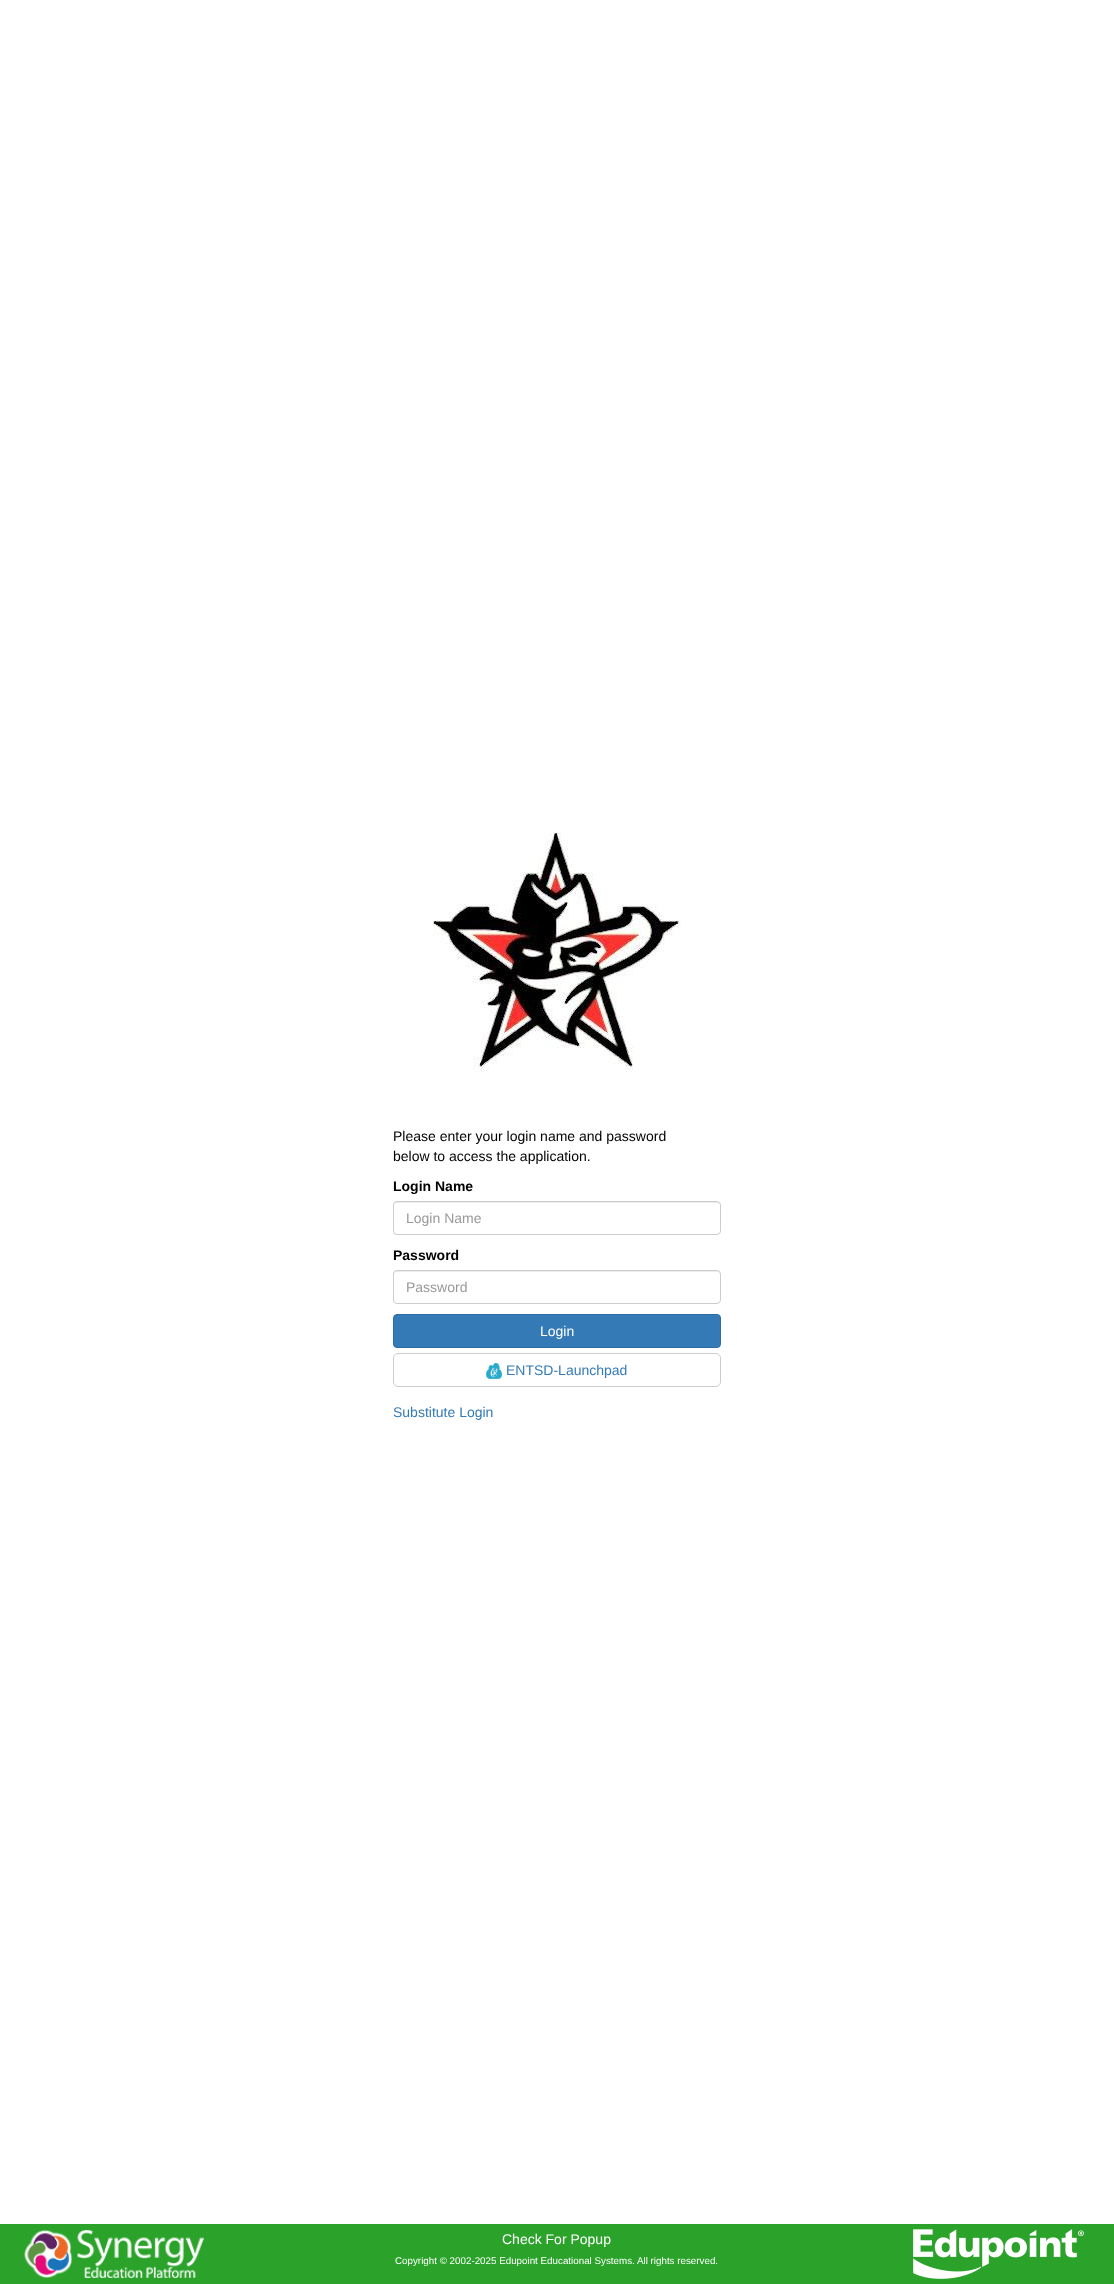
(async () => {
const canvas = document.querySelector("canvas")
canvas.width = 1114
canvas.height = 2284
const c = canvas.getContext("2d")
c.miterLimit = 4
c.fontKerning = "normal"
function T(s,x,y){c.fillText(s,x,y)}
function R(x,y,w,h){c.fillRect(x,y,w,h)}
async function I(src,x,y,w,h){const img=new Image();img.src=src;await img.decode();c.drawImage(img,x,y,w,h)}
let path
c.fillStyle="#fff"
R(0,0,1114,2284)
await I("1.png",433,832,248,240)
c.font="14px Liberation Sans"
c.fillStyle="#000"
T("Please enter your login name and password",393,1141)
T("below to access the application.",393,1161)
c.font="bold 14px Liberation Sans"
T("Login Name",393,1191)
c.fillStyle="#ececec"
path = new Path2D("M397 1203h320c2 0 3 1 3 3c0-2-1-4-3-4h-320c-2 0-3 2-3 4c0-2 1-3 3-3z")
c.fill(path)
c.beginPath()
c.roundRect(393.5,1201.5,327,33,3.5)
c.strokeStyle="#ccc"
c.stroke()
c.font="14px Liberation Sans"
c.fillStyle="#999"
T("Login Name",406,1223)
c.font="bold 14px Liberation Sans"
c.fillStyle="#000"
T("Password",393,1260)
c.fillStyle="#ececec"
path = new Path2D("M397 1272h320c2 0 3 1 3 3c0-2-1-4-3-4h-320c-2 0-3 2-3 4c0-2 1-3 3-3z")
c.fill(path)
c.beginPath()
c.roundRect(393.5,1270.5,327,33,3.5)
c.stroke()
c.font="14px Liberation Sans"
c.fillStyle="#999"
T("Password",406,1292)
c.fillStyle="#337ab7"
c.beginPath()
c.roundRect(393.5,1314.5,327,33,3.5)
c.fill()
c.strokeStyle="#2e6da4"
c.stroke()
c.fillStyle="#fff"
T("Login",540,1336)
c.beginPath()
c.roundRect(393.5,1353.5,327,33,4.5)
c.strokeStyle="#ccc"
c.stroke()
await I("2.png",486,1363,16,16)
c.fillStyle="#337ab7"
T("ENTSD-Launchpad",506,1375)
T("Substitute Login",393,1417)
c.fillStyle="#2ba32b"
R(0,2224,1114,60)
await I("3.png",24,2230,180,48)
c.fillStyle="#fff"
T("Check For Popup",502,2244)
await I("4.png",913,2229,171,50)
c.font="9.8px Liberation Sans"
T("Copyright © 2002-2025 Edupoint Educational Systems. All rights reserved.",395,2264)
})()
